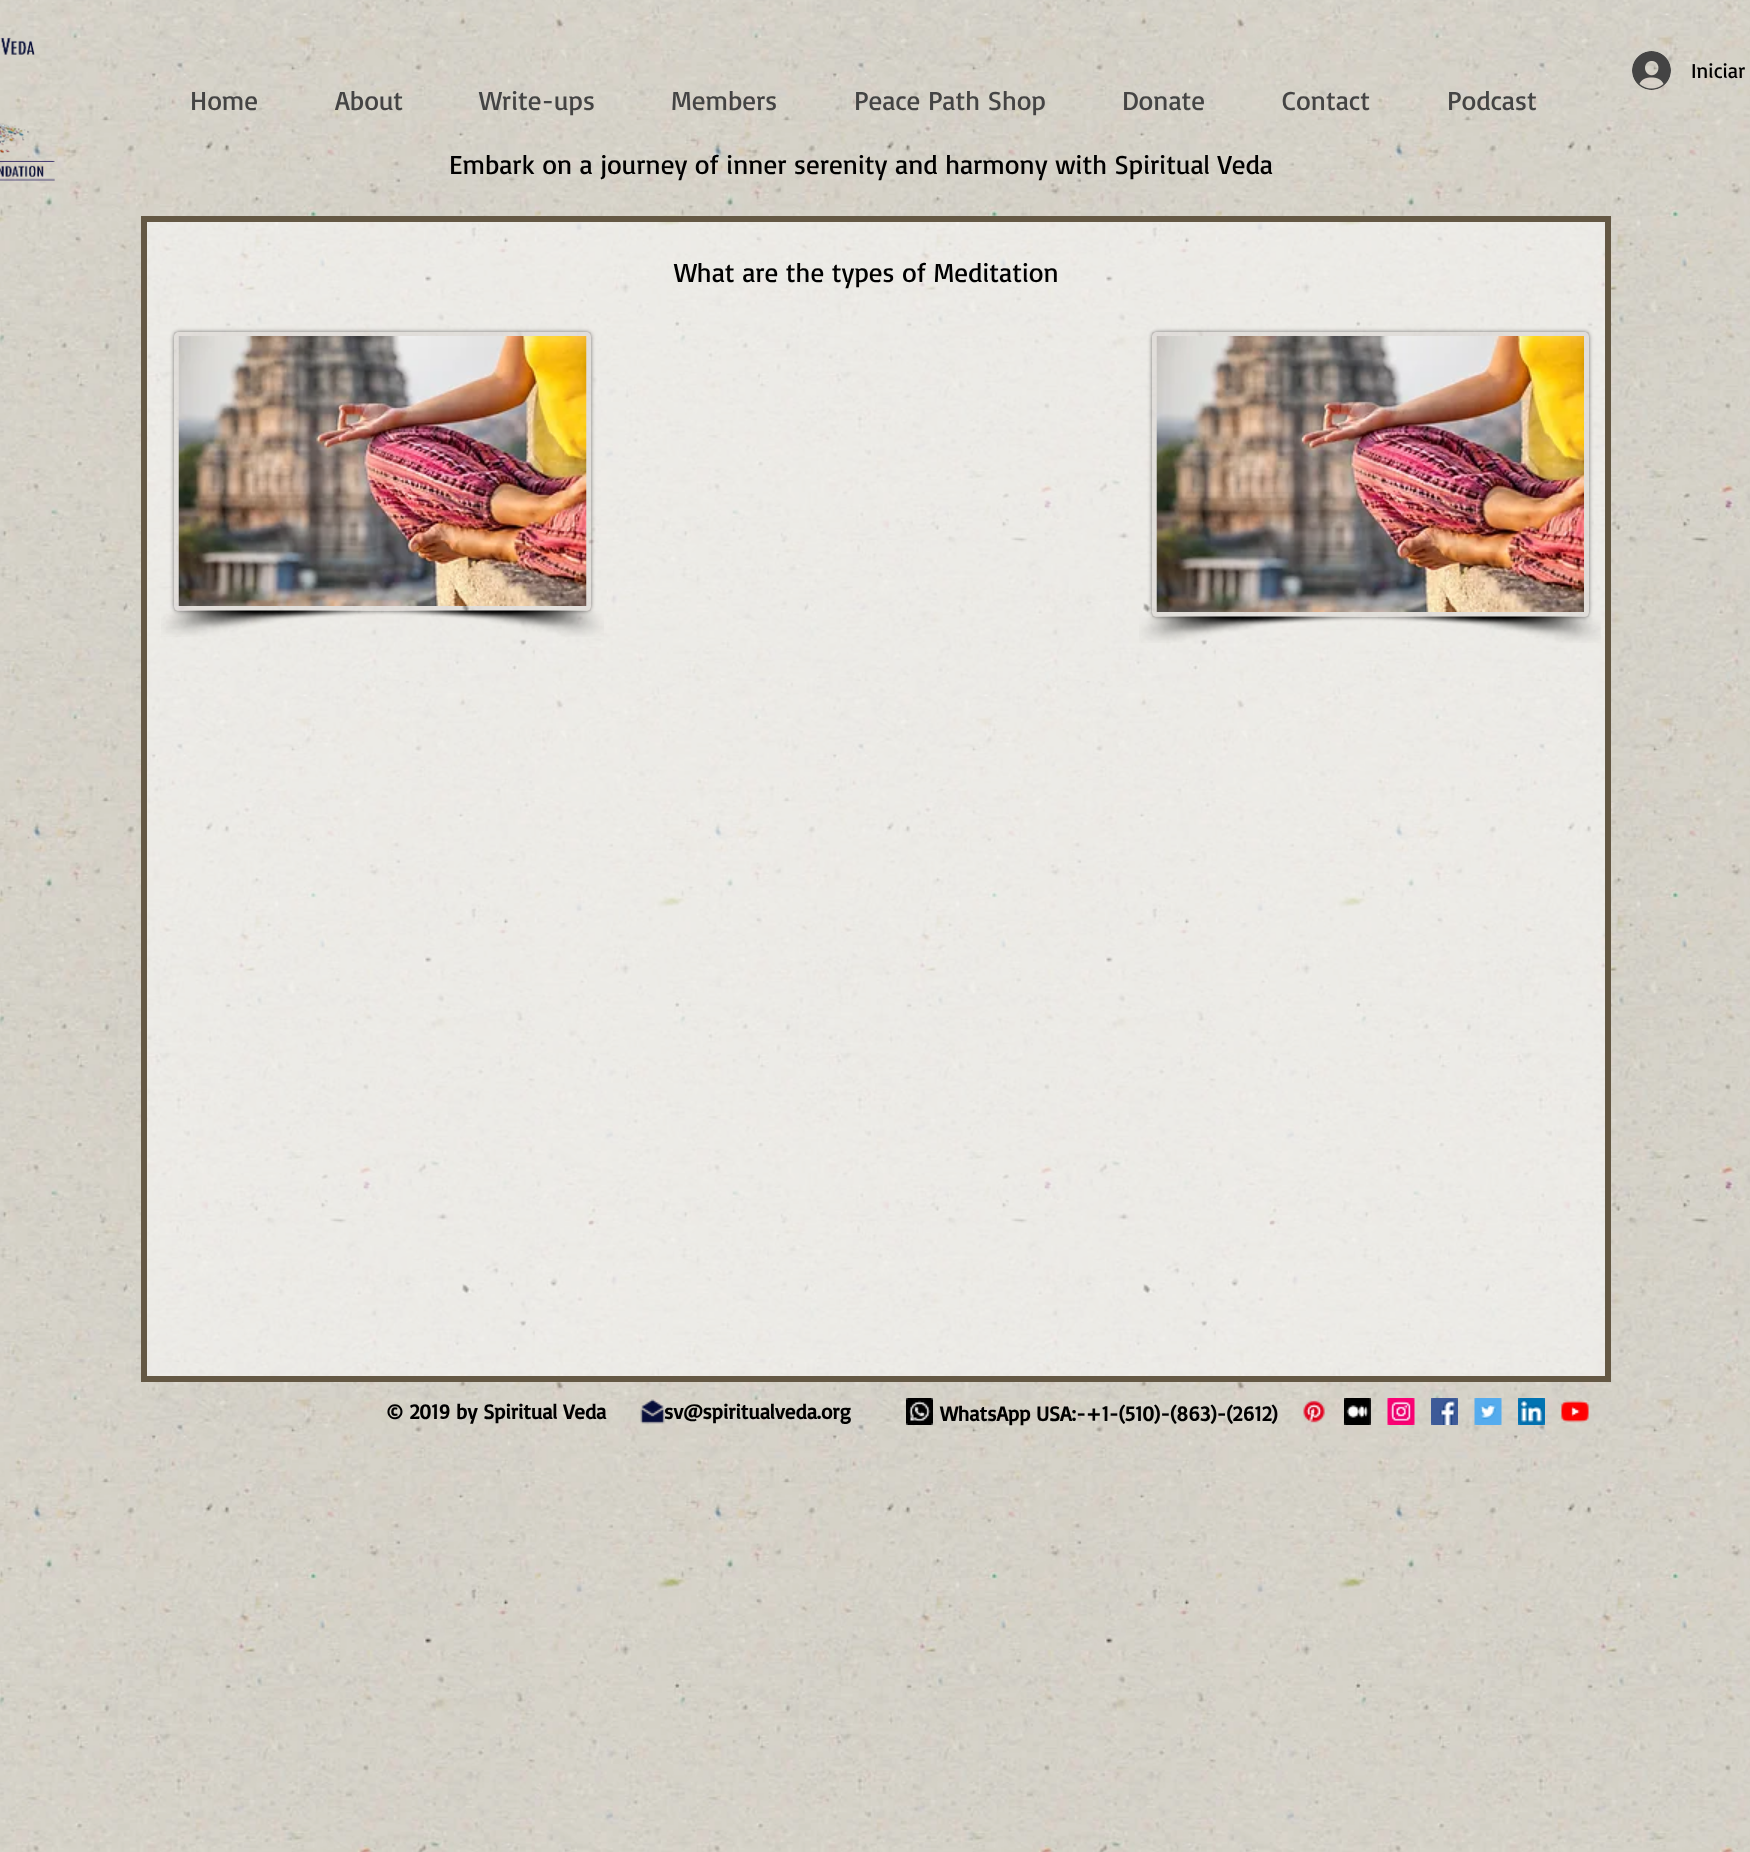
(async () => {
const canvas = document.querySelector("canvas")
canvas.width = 1750
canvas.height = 1852
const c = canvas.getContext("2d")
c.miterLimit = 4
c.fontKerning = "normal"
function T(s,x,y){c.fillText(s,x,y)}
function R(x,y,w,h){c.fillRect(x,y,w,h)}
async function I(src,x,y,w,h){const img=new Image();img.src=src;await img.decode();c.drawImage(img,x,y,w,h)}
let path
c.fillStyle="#fff"
R(0,0,1750,1852)
await I("1.png",0,0,1750,1852)
await I("2.png",0,37,55,144)
await I("3.png",1632,51,39,39)
c.font="21px Basic"
c.fillStyle="#000"
T("Iniciar",1691,78)
c.font="27px Basic"
c.fillStyle="#444"
T("Home",190,110)
T("About",335,110)
T("Write-ups",479,110)
T("Members",671,110)
T("Peace Path Shop",854,110)
T("Donate",1122,110)
T("Contact",1282,110)
T("Podcast",1447,110)
c.fillStyle="#000"
T("Embark on a journey of inner serenity and harmony with Spiritual Veda",449,174)
c.fillStyle="#ffffff8c"
c.beginPath()
c.rect(144,219,1464,1160)
c.fill()
c.strokeStyle="#645844"
c.lineWidth=6
c.stroke()
c.fillStyle="#000"
T("What are the types of Meditation",674,282)
c.save()
path = new Path2D("M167 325h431v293h-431zm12 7h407c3 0 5 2 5 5v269c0 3-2 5-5 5h-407c-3 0-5-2-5-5v-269c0-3 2-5 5-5z")
c.clip(path,"evenodd")
c.fillStyle="#00000080"
c.filter="blur(2px)"
c.beginPath()
c.roundRect(174,332,417,279,5)
c.fill()
c.filter="none"
c.restore()
c.fillStyle="#6458440a"
R(174,332,417,279)
c.strokeStyle="#6458440a"
c.lineWidth=5
c.strokeRect(176.5,334.5,412,274)
await I("4.png",178,336,409,270)
await I("5.png",161,610,223,27)
await I("6.png",381,610,223,27)
c.save()
path = new Path2D("M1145 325h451v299h-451zm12 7h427c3 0 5 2 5 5v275c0 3-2 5-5 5h-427c-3 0-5-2-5-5v-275c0-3 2-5 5-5z")
c.clip(path,"evenodd")
c.fillStyle="#00000080"
c.filter="blur(2px)"
c.beginPath()
c.roundRect(1152,332,437,285,5)
c.fill()
c.filter="none"
c.restore()
R(1152,332,437,285)
c.strokeRect(1154.5,334.5,432,280)
await I("7.png",1156,336,428,276)
await I("8.png",1139,616,223,27)
await I("9.png",1378,616,223,27)
c.font="bold 21px Basic"
c.fillStyle="#000"
T("sv@spiritualveda.org",664,1419)
await I("10.png",640,1399,25,25)
await I("11.png",906,1398,27,27)
await I("12.png",1303,1400,22,23)
await I("13.png",1344,1398,27,27)
await I("14.png",1387,1398,28,27)
await I("15.png",1431,1398,27,27)
await I("16.png",1474,1398,28,27)
await I("17.png",1518,1398,27,27)
await I("18.png",1561,1400,28,23)
T("© 2019 by Spiritual Veda",386,1419)
T("WhatsApp USA:-+1-(510)-(863)-(2612)",940,1421)
})()
